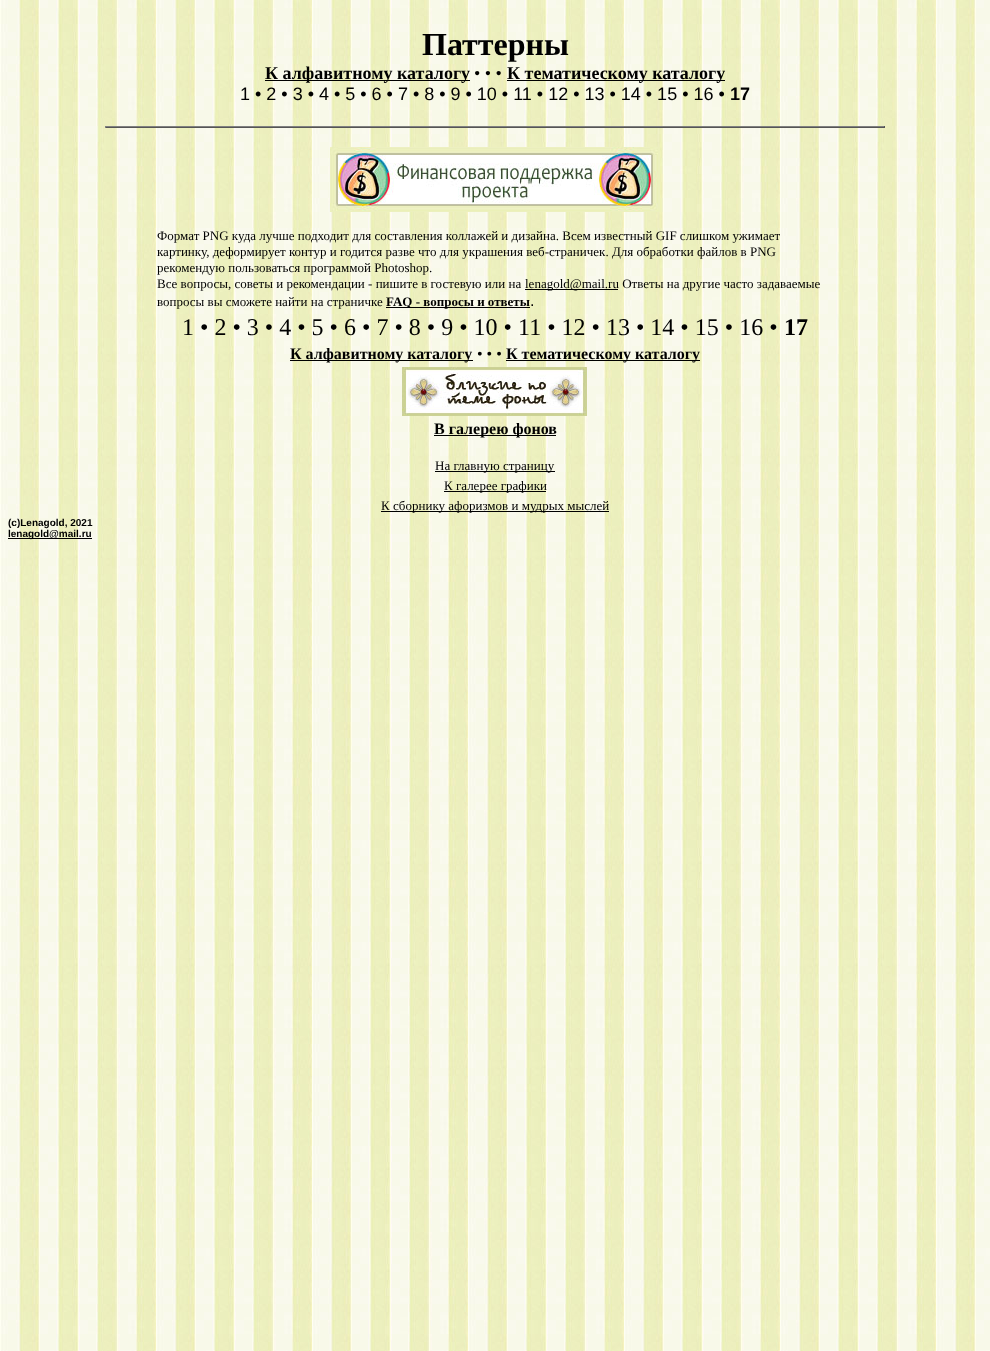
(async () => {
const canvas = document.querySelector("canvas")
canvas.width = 990
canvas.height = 1351
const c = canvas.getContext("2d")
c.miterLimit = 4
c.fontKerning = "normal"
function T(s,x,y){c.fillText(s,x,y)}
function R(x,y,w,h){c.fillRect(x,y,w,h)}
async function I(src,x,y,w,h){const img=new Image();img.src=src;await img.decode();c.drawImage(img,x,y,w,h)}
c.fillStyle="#fff"
R(0,0,990,1351)
await I("1.png",0,0,990,1351)
c.font="bold 32px Liberation Serif"
c.fillStyle="#000"
T("Паттерны",422,55)
R(265,80,205,1)
c.font="bold 18px Liberation Serif"
T("К алфавитному каталогу",265,79)
c.font="18px Liberation Serif"
T("• • •",474,79)
R(507,80,218,1)
c.font="bold 18px Liberation Serif"
T("К тематическому каталогу",507,79)
c.font="18px Liberation Sans"
T("1 • 2 • 3 • 4 • 5 • 6 • 7 • 8 • 9 • 10 • 11 • 12 • 13 • 14 • 15 • 16 •",240,100)
c.font="bold 18px Liberation Sans"
T("17",730,100)
c.fillStyle="#808080"
R(105,126,780,1)
c.fillStyle="#555"
R(884,126,1,2)
R(105,127,780,1)
c.fillStyle="#808080"
R(105,126,1,2)
await I("2.png",330,147,330,65)
c.font="13px Liberation Serif"
c.fillStyle="#000"
T("Формат PNG куда лучше подходит для составления коллажей и дизайна. Всем известный GIF слишком ужимает",157,240)
T("картинку, деформирует контур и годится разве что для украшения веб-страничек. Для обработки файлов в PNG",157,256)
T("рекомендую пользоваться программой Photoshop.",157,272)
T("Все вопросы, советы и рекомендации - пишите в гостевую или на",157,288)
R(525,289,93,1)
T("lenagold@mail.ru Ответы на другие часто задаваемые",525,288)
T("вопросы вы сможете найти на страничке",157,306)
R(386,307,144,1)
c.font="bold 13px Liberation Serif"
T("FAQ - вопросы и ответы",386,306)
c.font="16px Liberation Sans"
T(".",530,306)
c.font="24px Liberation Serif"
T("1 • 2 • 3 • 4 • 5 • 6 • 7 • 8 • 9 • 10 • 11 • 12 • 13 • 14 • 15 • 16 •",182,335)
c.font="bold 24px Liberation Serif"
T("17",784,335)
R(290,360,183,1)
c.font="bold 16px Liberation Serif"
T("К алфавитному каталогу",290,359)
c.font="16px Liberation Serif"
T("• • •",477,359)
R(506,360,194,1)
c.font="bold 16px Liberation Serif"
T("К тематическому каталогу",506,359)
await I("3.png",402,367,185,49)
R(434,435,122,1)
T("В галерею фонов",434,434)
R(435,471,120,1)
c.font="13px Liberation Serif"
T("На главную страницу",435,470)
R(444,491,102,1)
T("К галерее графики",444,490)
R(381,511,228,1)
T("К сборнику афоризмов и мудрых мыслей",381,510)
c.font="bold 10px Liberation Sans"
T("(c)Lenagold, 2021",8,526)
R(8,538,84,1)
T("lenagold@mail.ru",8,537)
})()
